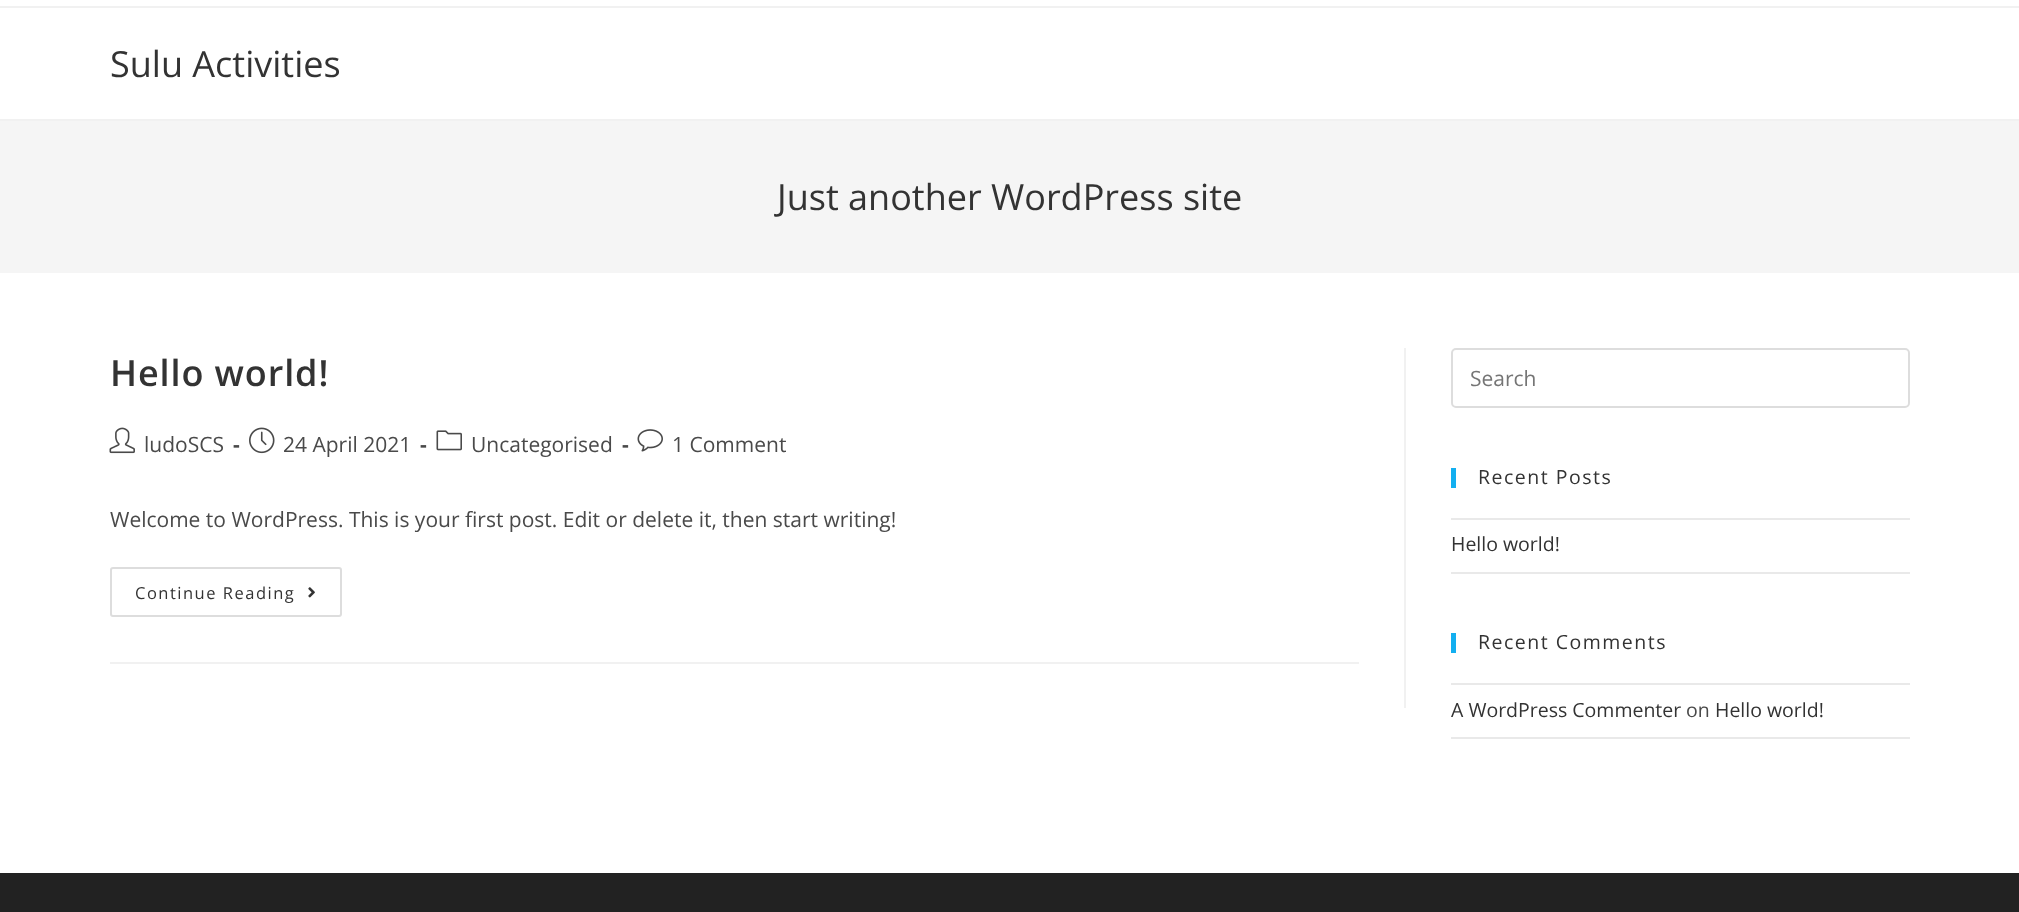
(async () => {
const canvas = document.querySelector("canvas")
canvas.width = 2019
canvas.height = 912
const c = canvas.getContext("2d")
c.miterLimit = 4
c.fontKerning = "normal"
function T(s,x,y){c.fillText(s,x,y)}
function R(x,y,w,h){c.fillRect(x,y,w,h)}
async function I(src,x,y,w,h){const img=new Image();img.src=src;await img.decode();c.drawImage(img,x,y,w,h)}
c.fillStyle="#fff"
R(0,0,2019,912)
c.fillStyle="#f1f1f1"
R(0,6,2019,2)
R(0,119,2019,2)
c.font="36px Open Sans"
c.fillStyle="#333"
T("Sulu Activities",110,77)
c.fillStyle="#f5f5f5"
R(0,121,2019,152)
c.fillStyle="#333"
T("Just another WordPress site",777,210)
c.fillStyle="#f1f1f1"
R(1404,348,2,360)
R(110,662,1249,2)
c.letterSpacing="0.9px"
c.font="600 36px Open Sans"
c.fillStyle="#333"
T("Hello world!",110,386)
await I("1.png",109,427,26,27)
c.letterSpacing="0px"
c.font="21px Open Sans"
c.fillStyle="#4a4a4a"
T("ludoSCS",144,452)
c.font="bold 21px Open Sans"
T("-",233,452)
await I("2.png",249,427,26,27)
c.font="21px Open Sans"
T("24 April 2021",283,452)
c.font="bold 21px Open Sans"
T("-",420,452)
await I("3.png",436,430,26,21)
c.font="21px Open Sans"
T("Uncategorised",471,452)
c.font="bold 21px Open Sans"
T("-",622,452)
await I("4.png",637,429,26,23)
c.font="21px Open Sans"
T("1 Comment",672,452)
T("Welcome to WordPress. This is your first post. Edit or delete it, then start writing!",110,527)
c.beginPath()
c.roundRect(111,568,230,48,2)
c.strokeStyle="#ddd"
c.lineWidth=2
c.stroke()
c.letterSpacing="1.5px"
c.font="16.5px Open Sans"
c.fillStyle="#333"
T("Continue Reading",135,599)
await I("5.png",308,587,7,11)
c.beginPath()
c.roundRect(1452,349,457,58,4)
c.stroke()
c.letterSpacing="0px"
c.font="21px Open Sans"
c.fillStyle="#757575"
T("Search",1470,386)
c.fillStyle="#13aff0"
R(1451,468,5,20)
c.letterSpacing="1.5px"
c.font="19.5px Open Sans"
c.fillStyle="#333"
T("Recent Posts",1478,484)
c.fillStyle="#e9e9e9"
R(1451,518,459,2)
R(1451,572,459,2)
c.letterSpacing="0px"
c.fillStyle="#333"
T("Hello world!",1451,551)
c.fillStyle="#13aff0"
R(1451,633,5,20)
c.letterSpacing="1.5px"
c.fillStyle="#333"
T("Recent Comments",1478,649)
c.fillStyle="#e9e9e9"
R(1451,683,459,2)
R(1451,737,459,2)
c.letterSpacing="0px"
c.fillStyle="#333"
T("A WordPress Commenter",1451,717)
c.fillStyle="#4a4a4a"
T("on",1686,717)
c.fillStyle="#333"
T("Hello world!",1715,717)
c.fillStyle="#222"
R(0,873,2019,39)
})()
